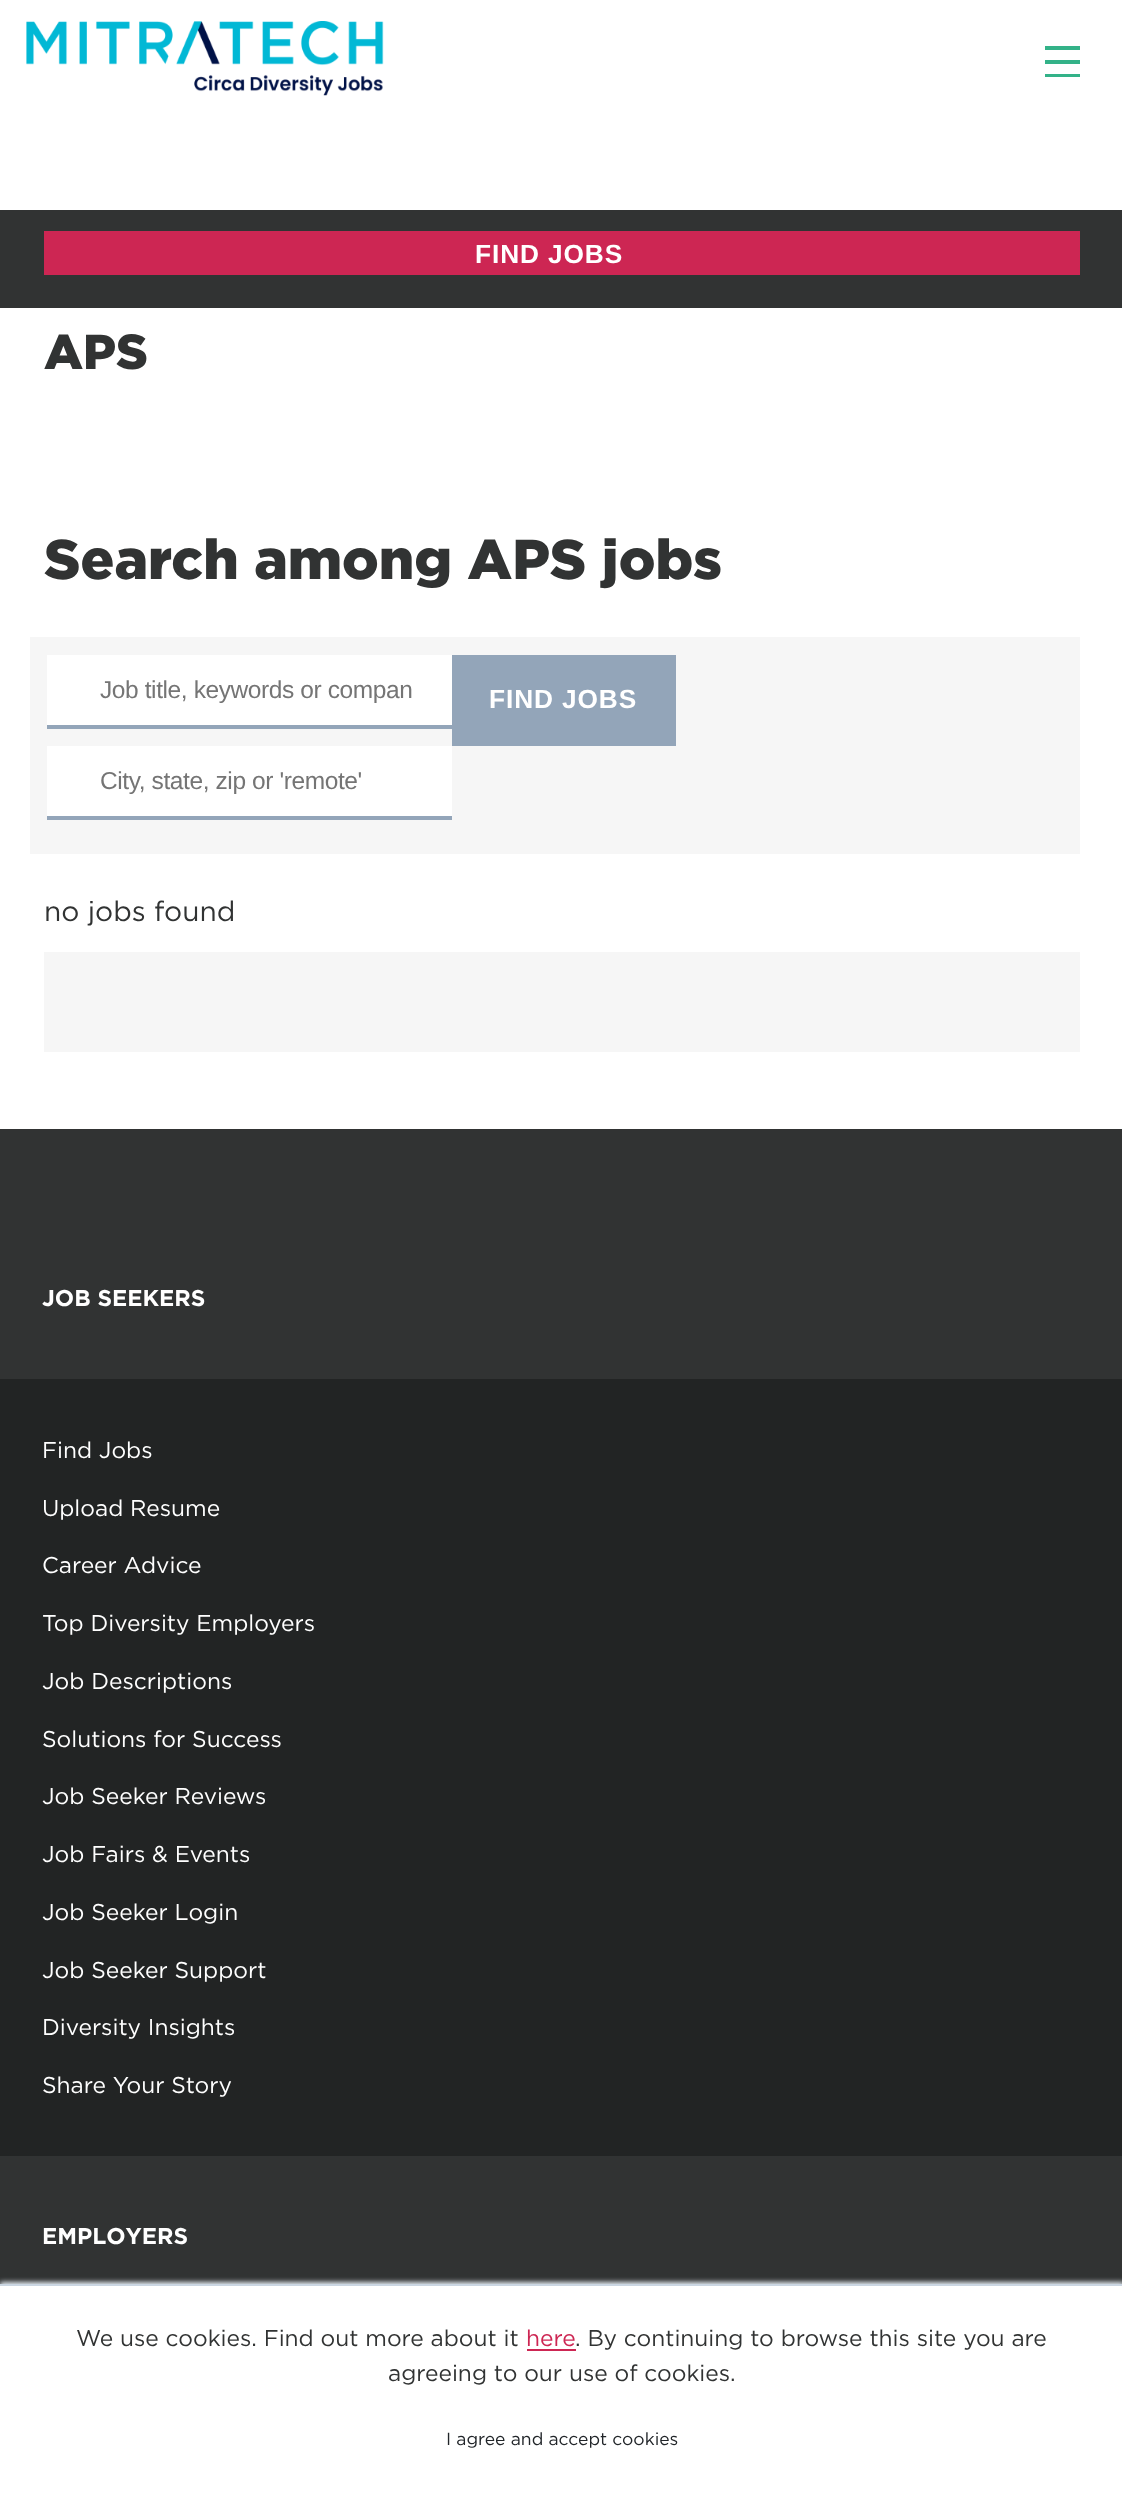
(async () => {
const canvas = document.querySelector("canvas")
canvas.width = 1122
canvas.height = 2495
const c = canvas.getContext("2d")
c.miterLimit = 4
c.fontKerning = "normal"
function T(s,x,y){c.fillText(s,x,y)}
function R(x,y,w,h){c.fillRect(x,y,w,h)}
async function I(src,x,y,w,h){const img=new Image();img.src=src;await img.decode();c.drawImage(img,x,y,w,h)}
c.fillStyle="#fff"
R(0,0,1122,2495)
await I("1.png",26,21,358,75)
c.fillStyle="#33b288"
R(1045,46,35,4)
R(1045,60,35,4)
R(1045,74,35,3)
c.fillStyle="#313333"
R(0,210,1122,98)
c.fillStyle="#cd2653"
R(44,231,1036,44)
c.letterSpacing="0.9px"
c.font="bold 26.25px Liberation Sans"
c.fillStyle="#fff"
T("FIND JOBS",475,263)
c.letterSpacing="0px"
c.font="900 49px Gotham"
c.fillStyle="#313333"
T("APS",44,369)
c.font="900 56px Gotham"
T("Search among APS jobs",44,579)
c.fillStyle="#f6f6f6"
R(30,637,1050,217)
c.fillStyle="#fff"
R(47,655,405,70)
c.fillStyle="#93a5b9"
R(47,725,405,4)
c.letterSpacing="-0.4px"
c.font="24.5px Liberation Sans"
c.fillStyle="#757575"
T("Job title, keywords or compan",100,698)
c.fillStyle="#fff"
R(47,746,405,70)
c.fillStyle="#93a5b9"
R(47,816,405,4)
c.fillStyle="#757575"
T("City, state, zip or 'remote'",100,789)
c.fillStyle="#93a5b9"
R(452,655,224,91)
c.letterSpacing="0.9px"
c.font="bold 26.25px Liberation Sans"
c.fillStyle="#fff"
T("FIND JOBS",489,708)
c.letterSpacing="0px"
c.font="28px Gotham"
c.fillStyle="#313333"
T("no jobs found",44,921)
c.fillStyle="#f6f6f6"
R(44,952,1036,100)
c.fillStyle="#313333"
R(0,1129,1122,1155)
c.font="bold 22.75px Gotham"
c.fillStyle="#fff"
T("JOB SEEKERS",42,1306)
c.fillStyle="#222424"
R(0,1379,1122,777)
c.font="22.75px Gotham"
c.fillStyle="#fff"
T("Find Jobs",42,1458)
T("Upload Resume",42,1516)
T("Career Advice",42,1573)
T("Top Diversity Employers",42,1631)
T("Job Descriptions",42,1689)
T("Solutions for Success",42,1747)
T("Job Seeker Reviews",42,1804)
T("Job Fairs & Events",42,1862)
T("Job Seeker Login",42,1920)
T("Job Seeker Support",42,1978)
T("Diversity Insights",42,2035)
T("Share Your Story",42,2093)
c.font="bold 22.75px Gotham"
T("EMPLOYERS",42,2244)
c.fillStyle="#eaf0f6"
c.filter="blur(2.5px)"
c.beginPath()
c.rect(0,2282,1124,212)
c.fill()
c.filter="none"
c.fillStyle="#fff"
R(0,2286,1122,209)
c.fillStyle="#cbd6e2"
R(0,2284,1122,2)
c.font="22.75px Gotham"
c.fillStyle="#313333"
T("We use cookies. Find out more about it",76,2346)
c.fillStyle="#cd2653"
T("here",526,2346)
R(527,2349,49,2)
c.fillStyle="#313333"
T(". By continuing to browse this site you are",575,2346)
T("agreeing to our use of cookies.",388,2381)
c.font="17.5px Gotham"
c.fillStyle="#212529"
T("I agree and accept cookies",446,2445)
})()
